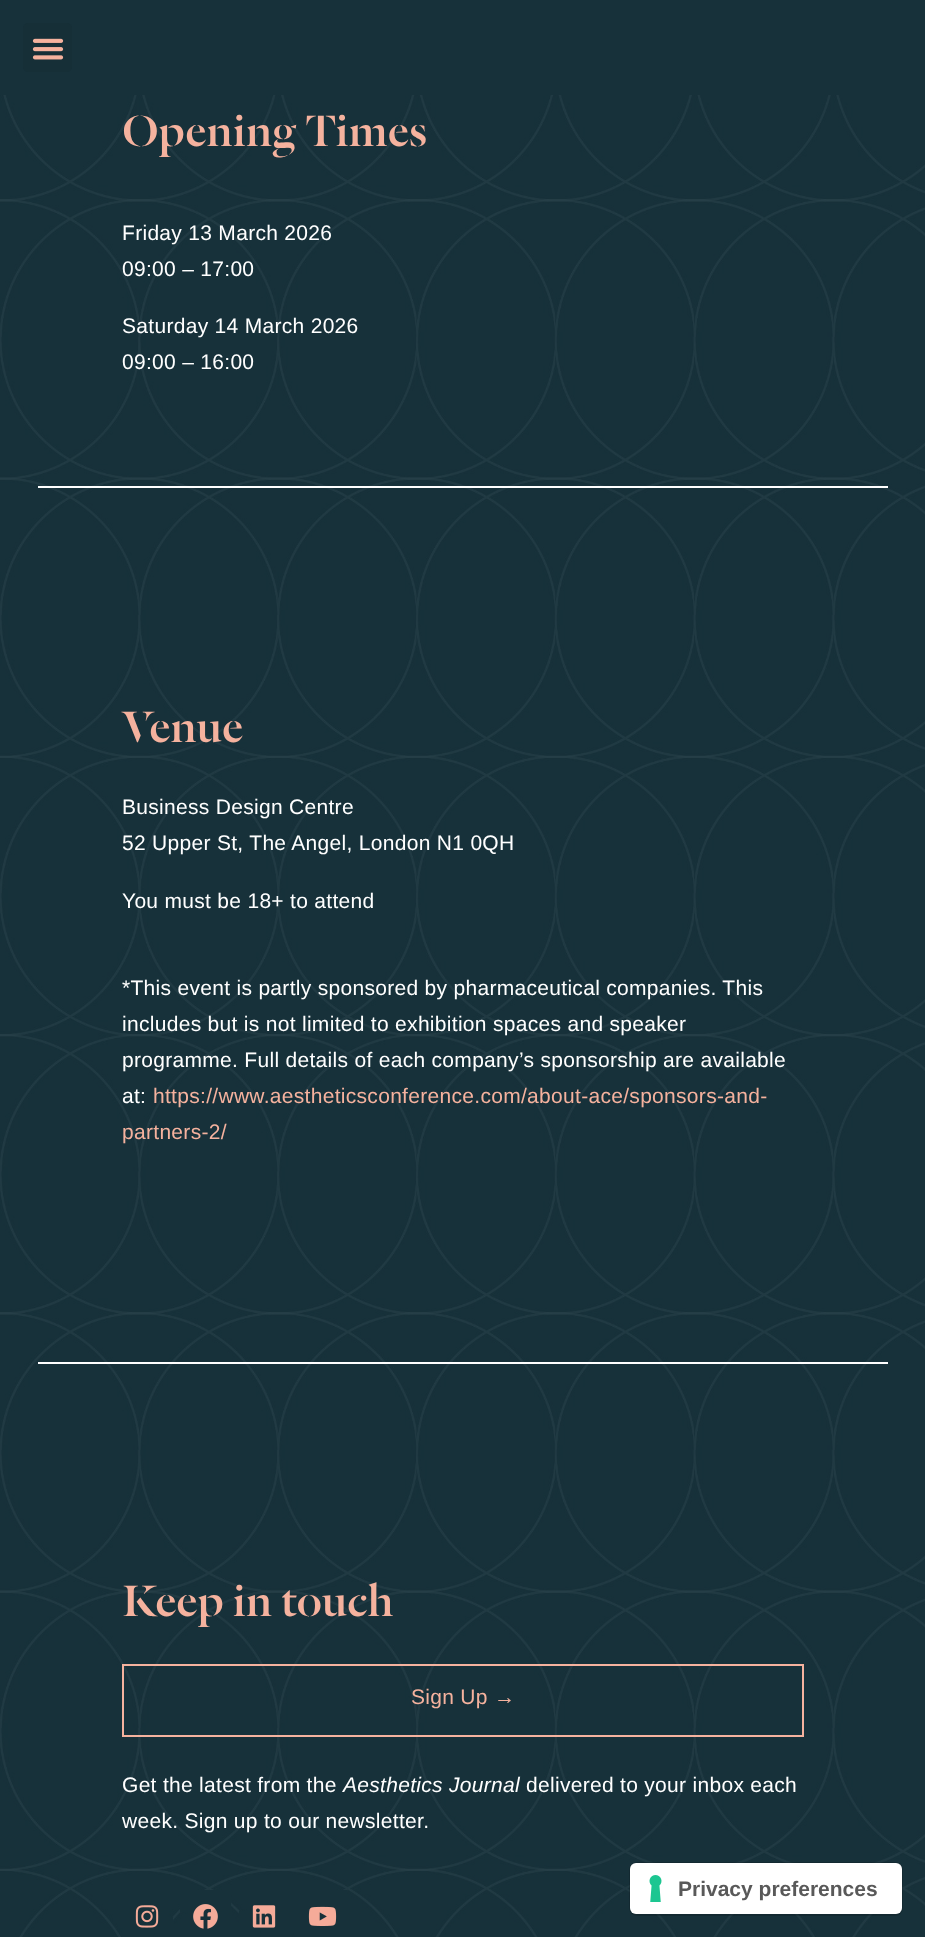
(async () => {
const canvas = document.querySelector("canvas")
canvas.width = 925
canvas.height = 1937
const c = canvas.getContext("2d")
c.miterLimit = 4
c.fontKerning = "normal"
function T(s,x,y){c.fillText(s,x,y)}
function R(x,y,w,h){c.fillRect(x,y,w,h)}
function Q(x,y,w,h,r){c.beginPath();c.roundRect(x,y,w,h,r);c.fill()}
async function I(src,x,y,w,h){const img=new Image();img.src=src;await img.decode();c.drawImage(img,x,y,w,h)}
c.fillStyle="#fff"
R(0,0,925,1937)
c.fillStyle="#17313a"
R(0,0,925,95)
c.fillStyle="#162f37"
Q(23,23,49,49,5)
await I("1.png",32,38,32,22)
await I("2.png",0,95,925,1842)
c.letterSpacing="0.3px"
c.font="48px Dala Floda"
c.fillStyle="#f5b29e"
T("Opening Times",122,146)
c.font="21px Liberation Sans"
c.fillStyle="#fff"
T("Friday 13 March 2026",122,240)
T("09:00 – 17:00",122,276)
T("Saturday 14 March 2026",122,333)
T("09:00 – 16:00",122,369)
R(38,486,850,2)
R(38,1362,850,2)
c.font="48px Dala Floda"
c.fillStyle="#f5b29e"
T("Venue",122,742)
c.font="21px Liberation Sans"
c.fillStyle="#fff"
T("Business Design Centre",122,814)
T("52 Upper St, The Angel, London N1 0QH",122,850)
T("You must be 18+ to attend",122,908)
T("*This event is partly sponsored by pharmaceutical companies. This",122,995)
T("includes but is not limited to exhibition spaces and speaker",122,1031)
T("programme. Full details of each company’s sponsorship are available",122,1067)
T("at:",122,1103)
c.fillStyle="#f5b29e"
T("https://www.aestheticsconference.com/about-ace/sponsors-and-",153,1103)
T("partners-2/",122,1139)
c.font="48px Dala Floda"
T("Keep in touch",122,1616)
c.strokeStyle="#f5b29e"
c.lineWidth=2
c.strokeRect(123,1665,680,71)
c.font="21px Liberation Sans"
T("Sign Up →",411,1704)
c.fillStyle="#fff"
T("Get the latest from the",122,1792)
c.font="italic 21px Liberation Sans"
T("Aesthetics Journal",343,1792)
c.font="21px Liberation Sans"
T("delivered to your inbox each",526,1792)
T("week. Sign up to our newsletter.",122,1828)
c.fillStyle="#17313a"
R(158,1917,15,20)
await I("3.png",135,1905,24,23)
R(180,1890,51,22)
await I("4.png",193,1904,25,25)
R(239,1911,21,26)
await I("5.png",252,1905,24,23)
R(297,1890,50,47)
await I("6.png",308,1906,29,20)
c.beginPath()
c.roundRect(630,1863,272,52,7)
c.strokeStyle="#00000026"
c.stroke()
c.fillStyle="#fff"
Q(630,1863,272,51,6)
await I("7.png",649,1875,13,27)
c.letterSpacing="0px"
c.font="bold 21px Liberation Sans"
c.fillStyle="#595959"
T("Privacy preferences",678,1896)
})()
